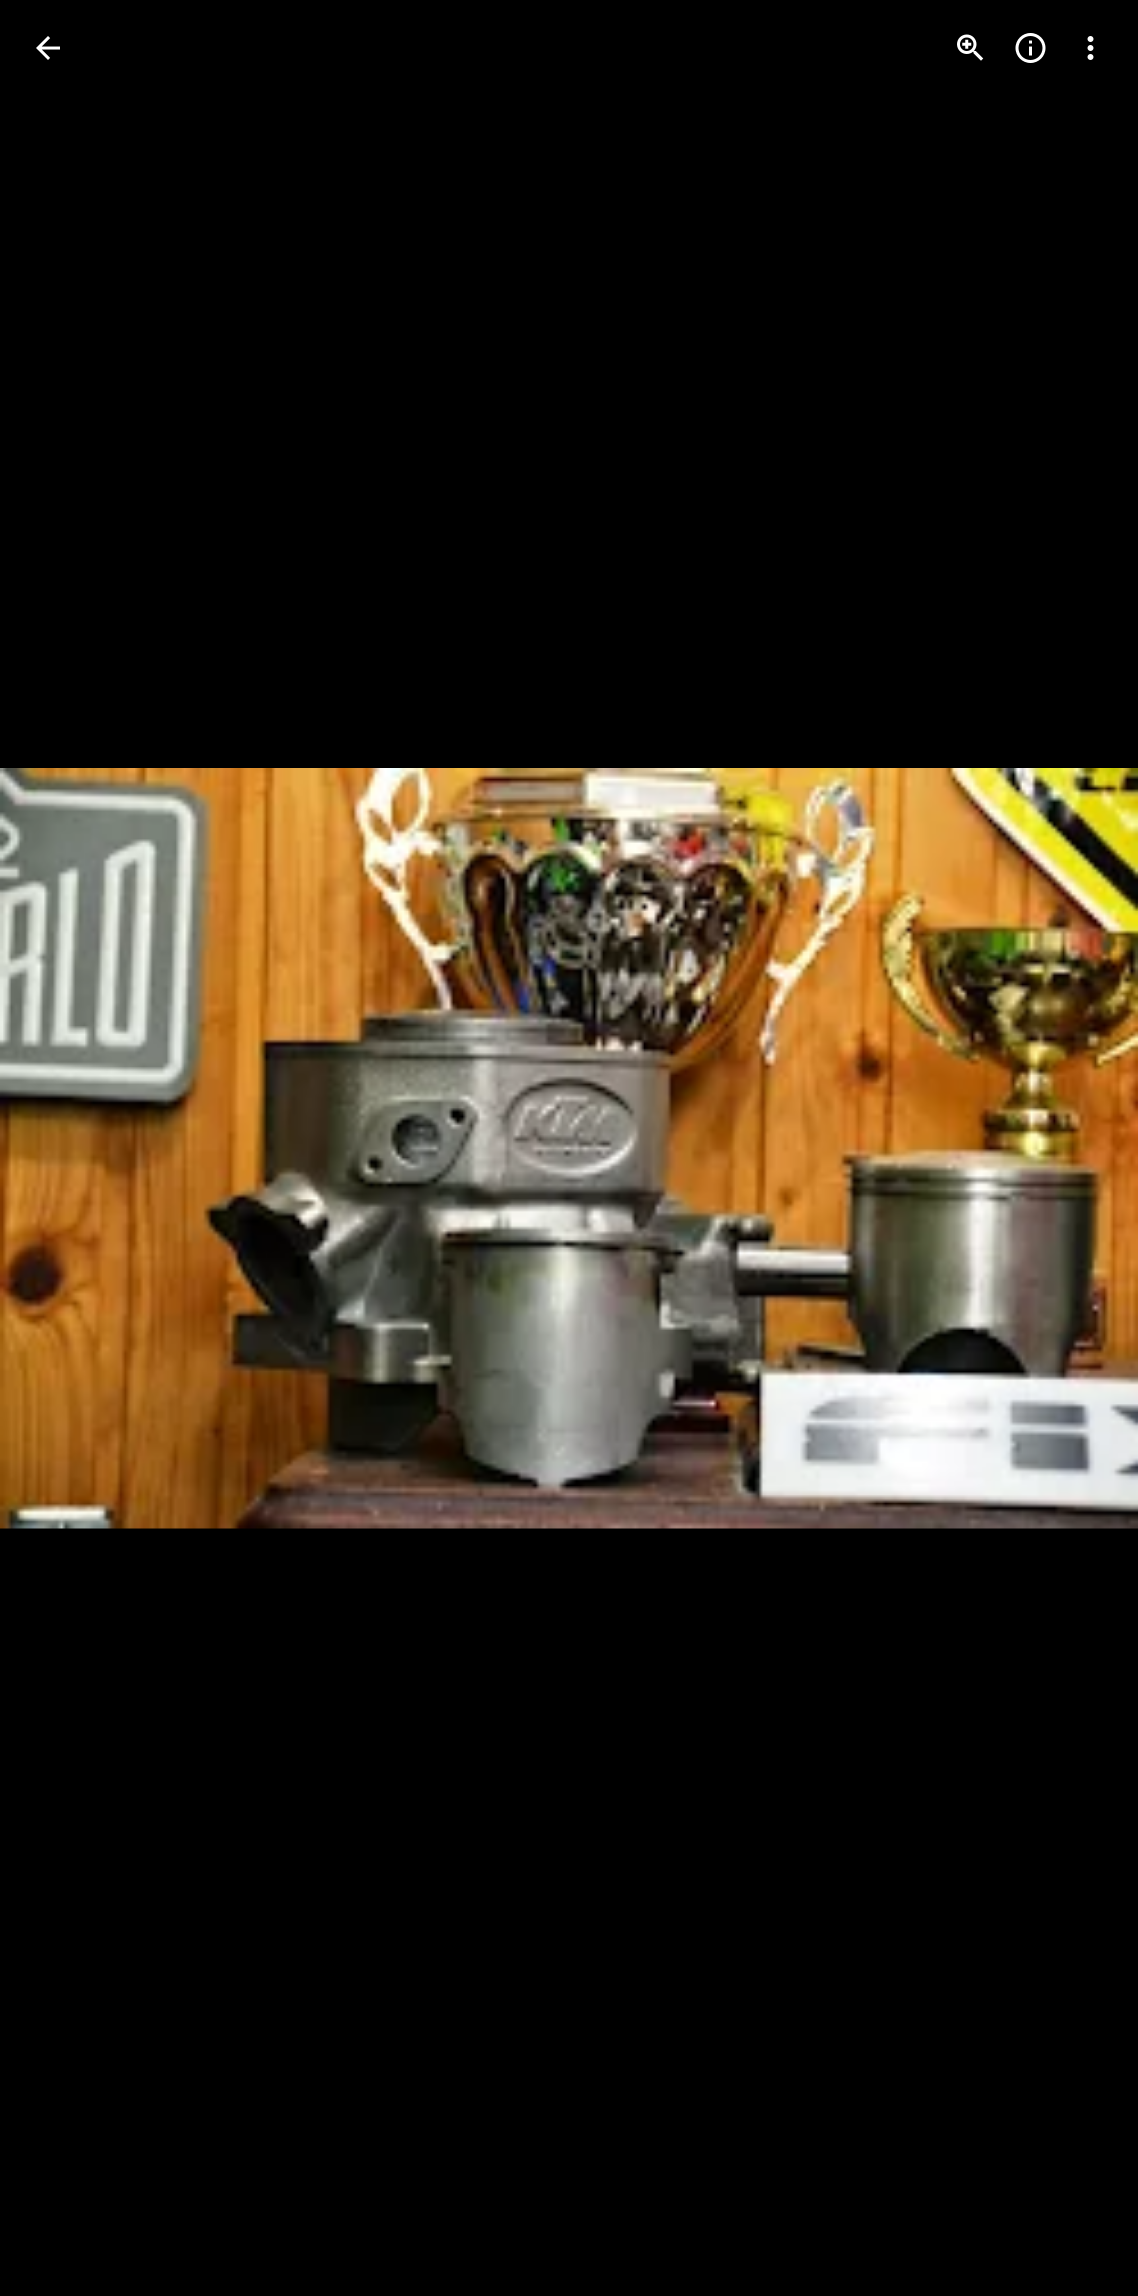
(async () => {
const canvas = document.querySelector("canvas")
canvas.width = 1138
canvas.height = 2296
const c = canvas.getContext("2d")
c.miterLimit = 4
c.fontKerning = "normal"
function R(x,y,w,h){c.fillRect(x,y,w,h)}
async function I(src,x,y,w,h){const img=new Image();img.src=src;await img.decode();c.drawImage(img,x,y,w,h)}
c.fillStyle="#000"
R(0,0,1138,2296)
await I("1.png",36,36,24,24)
await I("2.png",957,34,27,27)
await I("3.png",1015,33,31,30)
await I("4.png",1087,36,7,24)
await I("5.png",0,768,1138,761)
})()
